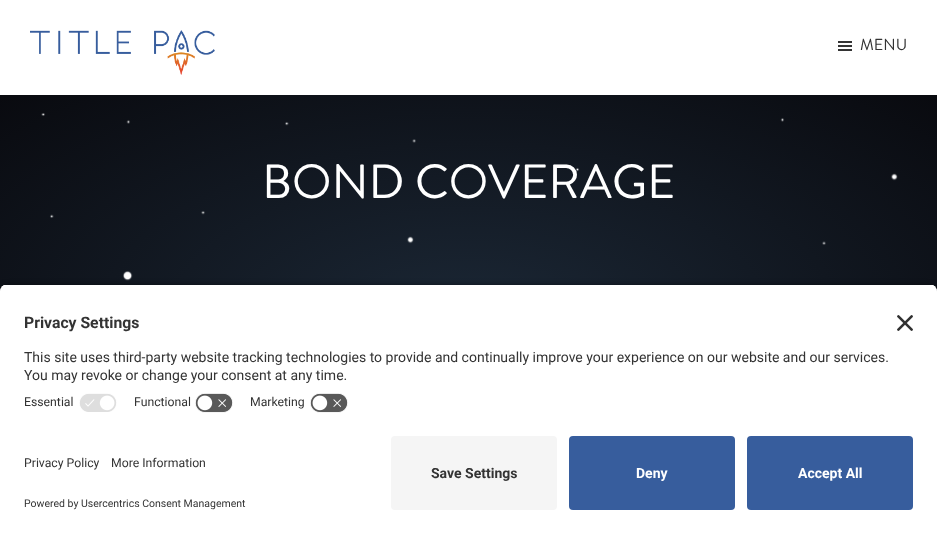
(async () => {
const canvas = document.querySelector("canvas")
canvas.width = 937
canvas.height = 534
const c = canvas.getContext("2d")
c.miterLimit = 4
c.fontKerning = "normal"
function T(s,x,y){c.fillText(s,x,y)}
function R(x,y,w,h){c.fillRect(x,y,w,h)}
function Q(x,y,w,h,r){c.beginPath();c.roundRect(x,y,w,h,r);c.fill()}
async function I(src,x,y,w,h){const img=new Image();img.src=src;await img.decode();c.drawImage(img,x,y,w,h)}
let gradient
c.fillStyle="#fff"
R(0,0,937,534)
await I("1.png",30,30,185,45)
await I("2.png",838,41,14,10)
c.font="16px Brandon Grotesque"
c.fillStyle="#333"
T("MENU",860,50)
gradient = c.createRadialGradient(469,669.33,0,469,669.33,663)
gradient.addColorStop(0,"#1b2735")
gradient.addColorStop(1,"#090a0f")
c.fillStyle = gradient
c.beginPath()
c.rect(0,95,937,197)
c.save()
c.clip()
c.scale(1,314 / 663)
c.fillRect(0,0,937,1128)
c.restore()
await I("3.png",41,113,857,168)
c.font="48px Brandon Grotesque"
c.fillStyle="#fff"
T("BOND COVERAGE",262,198)
c.fillStyle="#000000cc"
c.filter="blur(3.5px)"
c.beginPath()
c.roundRect(0,287,937,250,8)
c.fill()
c.filter="none"
c.save()
c.beginPath()
c.roundRect(0,284,937,144,[8,8,0,0])
c.clip()
c.fillStyle="#fff"
R(0,285,937,143)
R(0,285,937,103)
c.restore()
c.font="bold 15.75px Roboto"
c.fillStyle="#333"
T("Privacy Settings",24,328)
await I("4.png",897,315,16,16)
c.font="14px Roboto"
T("This site uses third-party website tracking technologies to provide and continually improve your experience on our website and our services.",24,362)
T("You may revoke or change your consent at any time.",24,380)
c.font="12.25px Roboto"
T("Essential",24,406)
await I("5.png",79,393,38,19)
T("Functional",134,406)
await I("6.png",195,393,38,20)
T("Marketing",250,406)
await I("6.png",310,393,38,20)
c.fillStyle="#fff"
R(0,428,937,106)
c.fillStyle="#333"
T("Privacy Policy",24,467)
T("More Information",111,467)
c.font="10.5px Roboto"
T("Powered by Usercentrics Consent Management",24,507)
c.fillStyle="#f5f5f5"
Q(391,436,166,74,4)
c.font="bold 14px Roboto"
c.fillStyle="#333"
T("Save Settings",431,478)
c.fillStyle="#375d9d"
Q(569,436,166,74,4)
c.fillStyle="#fff"
T("Deny",636,478)
c.fillStyle="#375d9d"
Q(747,436,166,74,4)
c.fillStyle="#fff"
T("Accept All",798,478)
})()
